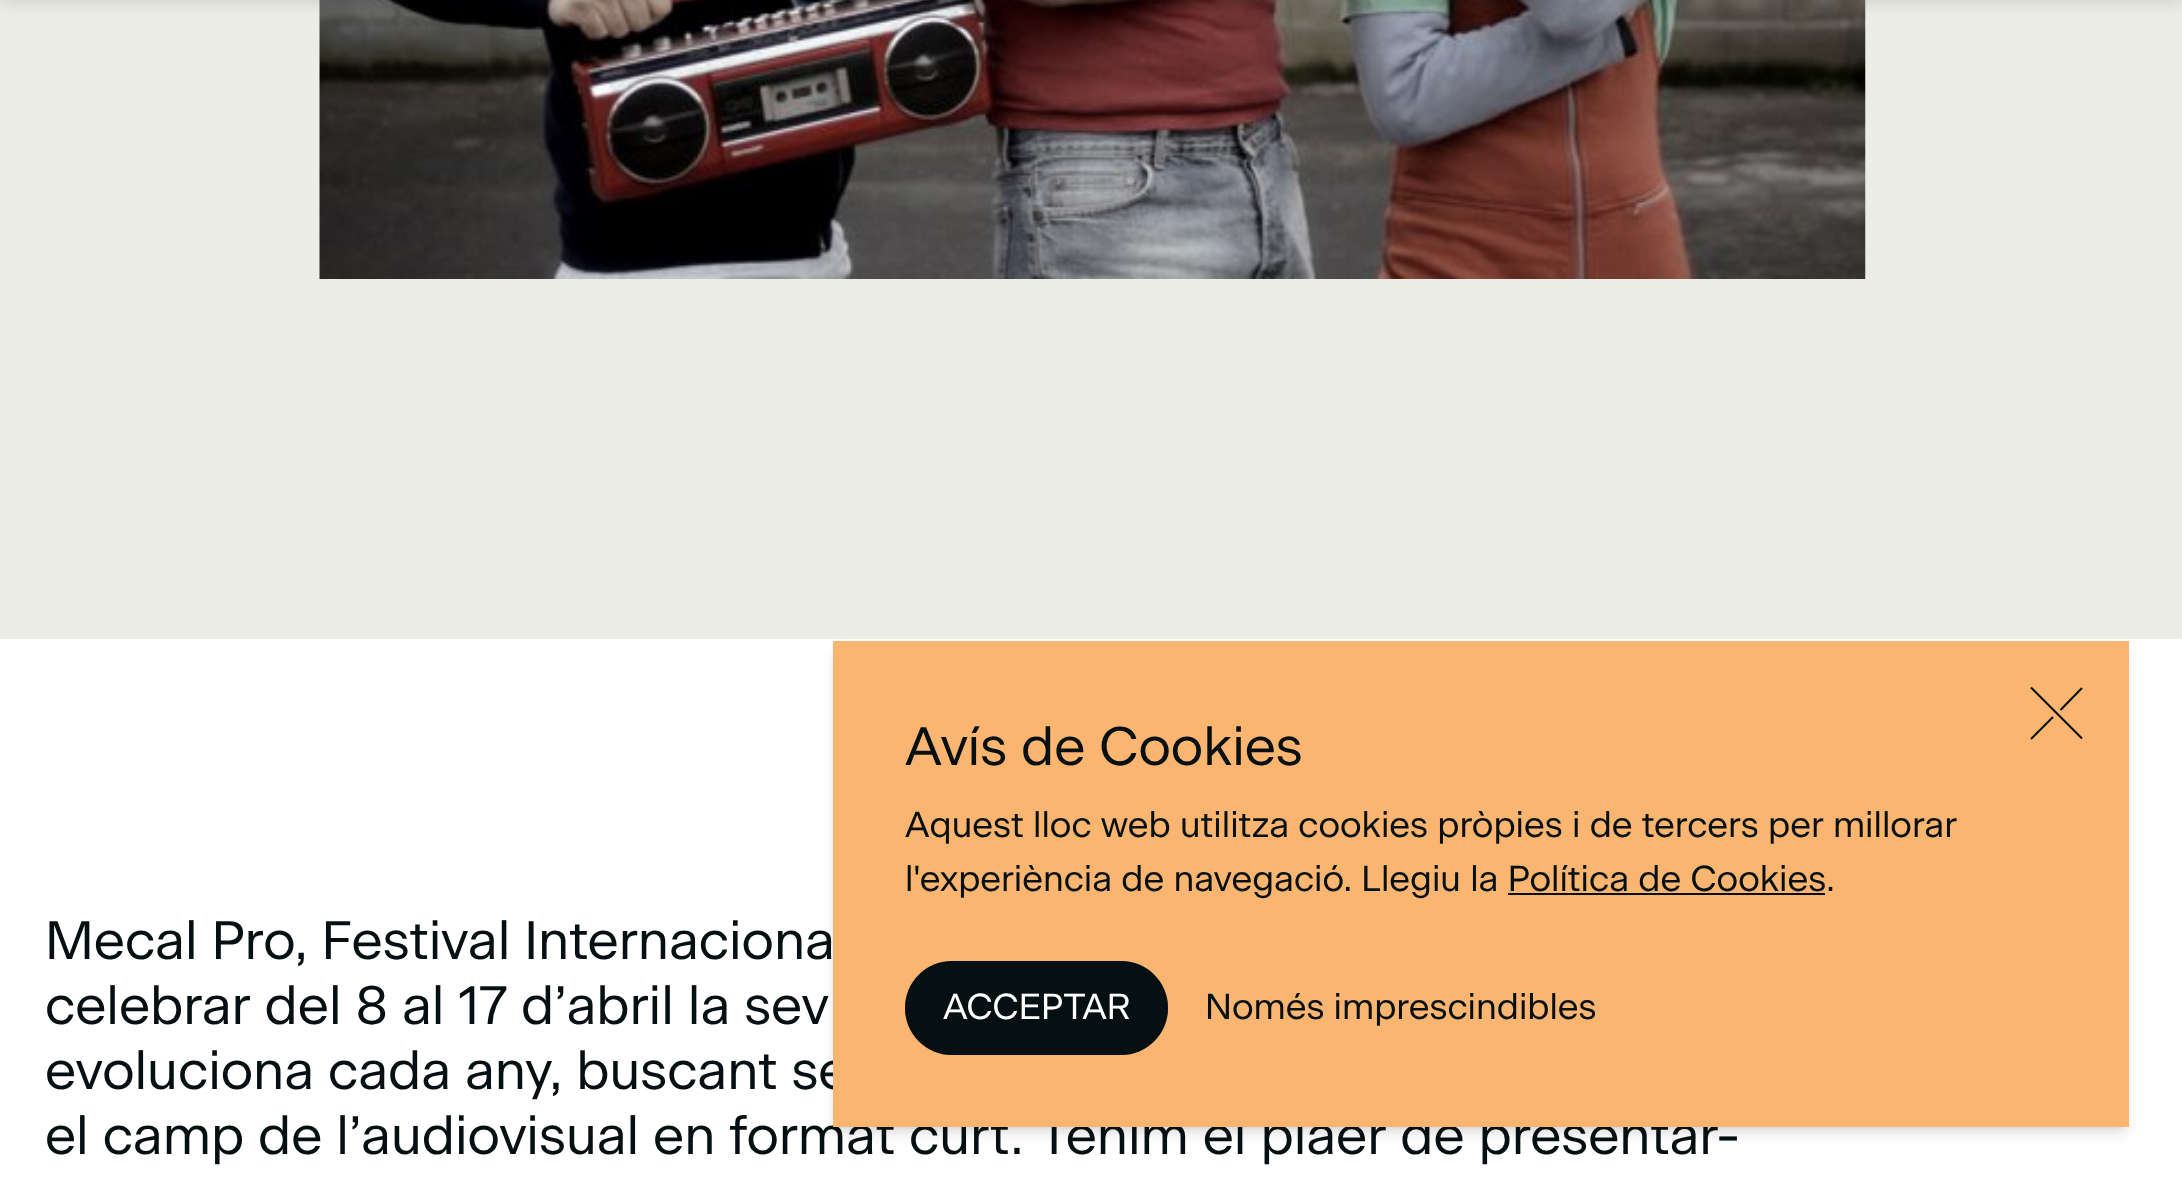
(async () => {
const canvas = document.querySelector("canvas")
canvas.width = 2182
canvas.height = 1180
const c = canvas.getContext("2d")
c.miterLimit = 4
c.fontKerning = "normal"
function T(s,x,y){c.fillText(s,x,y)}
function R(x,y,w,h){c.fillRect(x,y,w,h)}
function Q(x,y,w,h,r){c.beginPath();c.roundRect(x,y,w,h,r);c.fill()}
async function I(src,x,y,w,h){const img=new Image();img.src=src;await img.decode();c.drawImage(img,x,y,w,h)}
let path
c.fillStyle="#fff"
R(0,0,2182,1180)
c.fillStyle="#edede8"
R(0,0,2182,639)
await I("1.png",319,0,1547,279)
c.fillStyle="#00000029"
c.filter="blur(9px)"
c.beginPath()
c.rect(0,-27,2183,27)
c.fill()
c.filter="none"
c.fillStyle="#0000001a"
c.filter="blur(4.5px)"
c.beginPath()
c.rect(837,650,1287,477)
c.fill()
c.filter="none"
c.filter="blur(7px)"
c.beginPath()
c.rect(835,653,1291,481)
c.fill()
c.filter="none"
c.font="300 54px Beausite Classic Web"
c.fillStyle="#060f11"
T("evoluciona cada any, buscant se",45,1089)
T("el camp de l’audiovisual en format curt. Tenim el plaer de presentar-",45,1154)
c.fillStyle="#fab671"
R(833,641,1296,486)
path = new Path2D("M2031 687.5l51 51m-51 .5l22-22m7.5-7l21.5-22")
c.strokeStyle="#060f11"
c.lineWidth=2.1
c.stroke(path)
c.fillStyle="#060f11"
T("Avís de Cookies",905,765)
c.font="300 36px Beausite Classic Web"
T("Aquest lloc web utilitza cookies pròpies i de tercers per millorar",905,837)
T("l'experiència de navegació. Llegiu la Política de Cookies.",905,891)
R(1508,893,317,2)
Q(905,961,263,94,47)
c.beginPath()
c.roundRect(906,962,261,92,46)
c.strokeStyle="#060f1166"
c.lineWidth=2
c.stroke()
c.fillStyle="#fff"
T("ACCEPTAR",943,1019)
c.fillStyle="#060f11"
T("Només imprescindibles",1205,1019)
c.font="300 54px Beausite Classic Web"
T("Mecal Pro, Festival Internaciona",45,959)
T("celebrar del 8 al 17 d’abril la sev",45,1024)
})()
